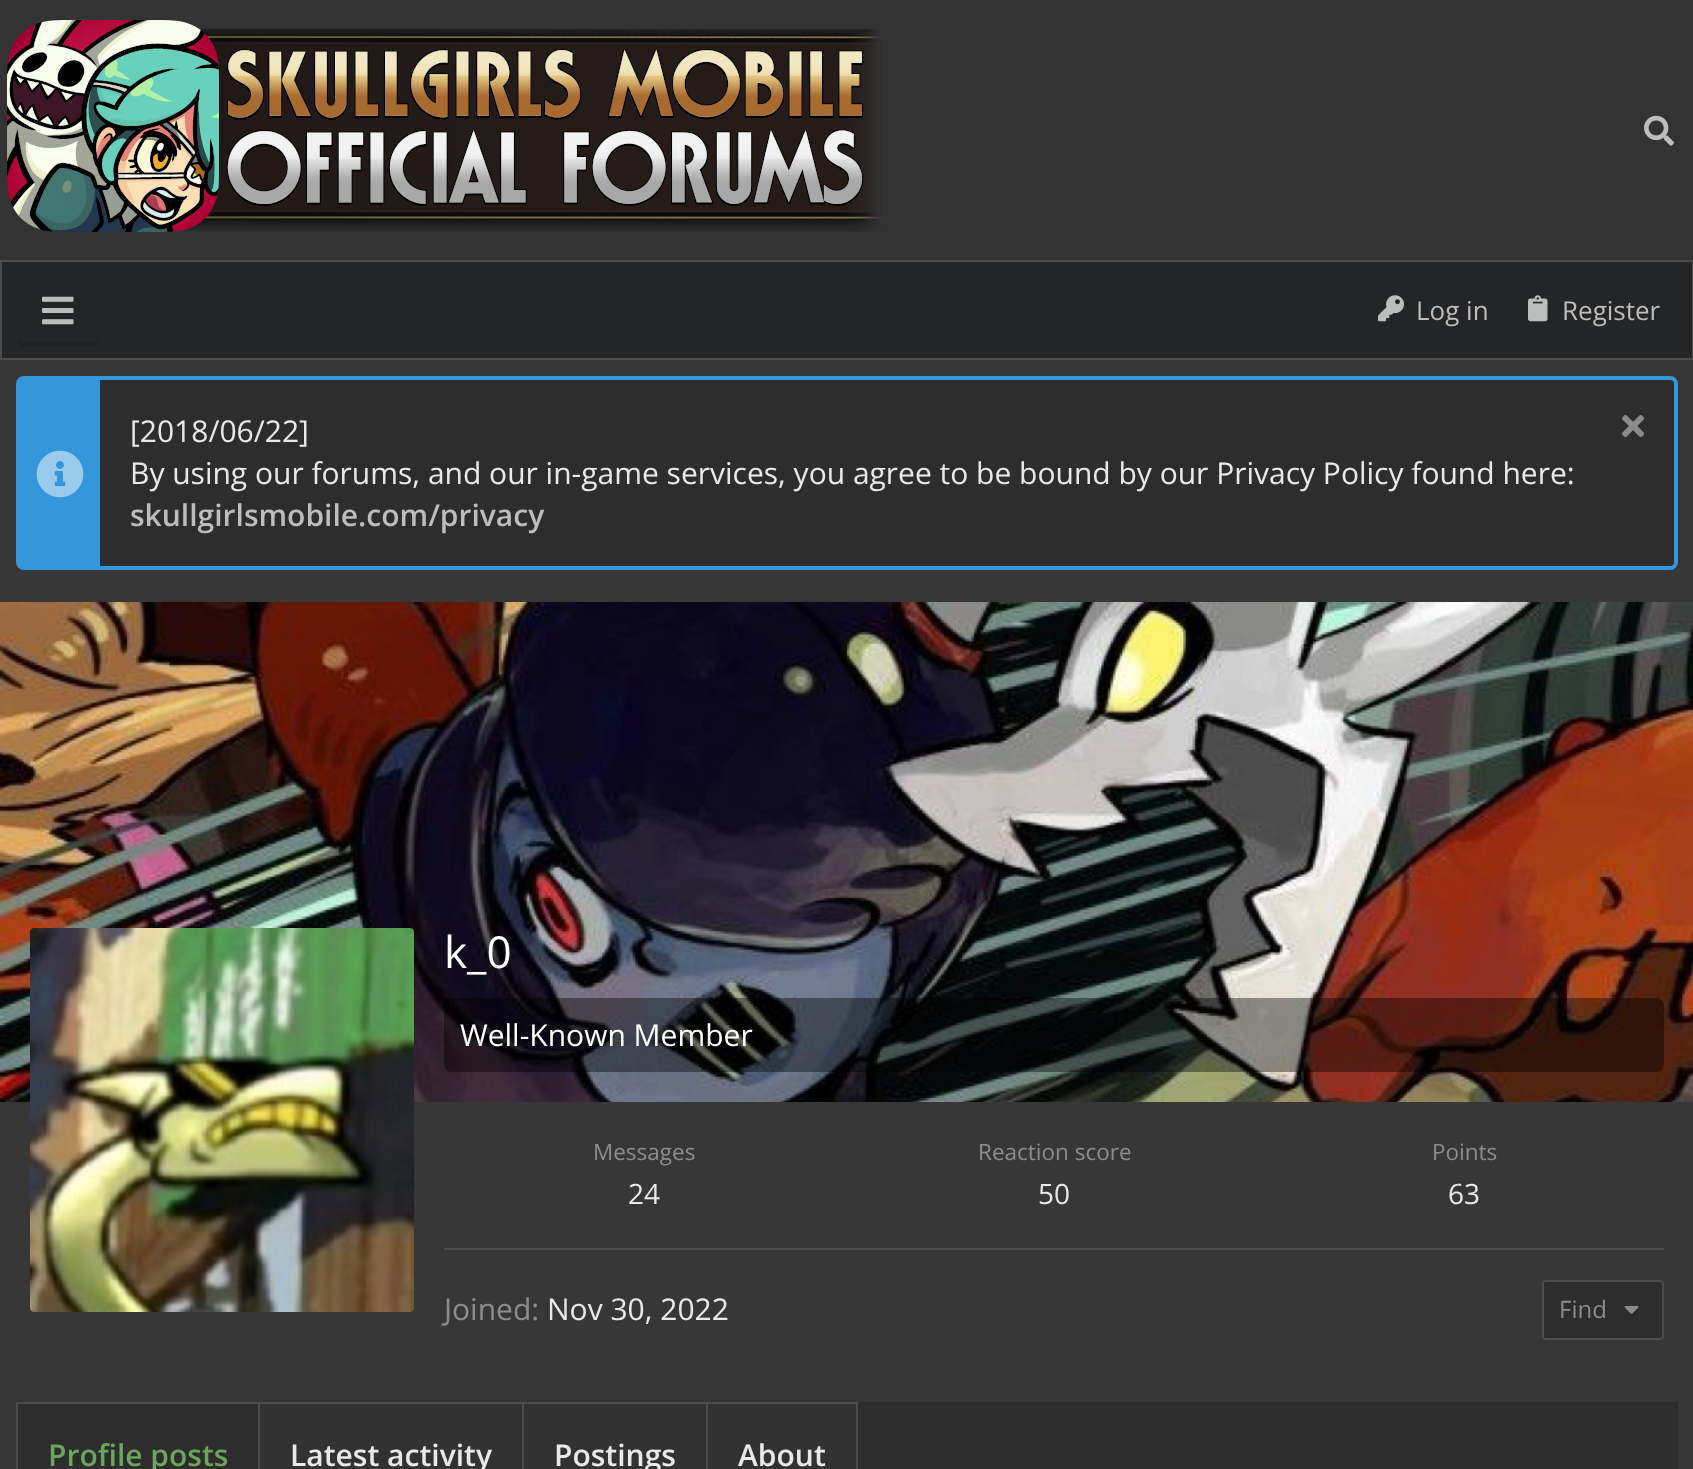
(async () => {
const canvas = document.querySelector("canvas")
canvas.width = 1693
canvas.height = 1469
const c = canvas.getContext("2d")
c.miterLimit = 4
c.fontKerning = "normal"
function T(s,x,y){c.fillText(s,x,y)}
function R(x,y,w,h){c.fillRect(x,y,w,h)}
function Q(x,y,w,h,r){c.beginPath();c.roundRect(x,y,w,h,r);c.fill()}
async function I(src,x,y,w,h){const img=new Image();img.src=src;await img.decode();c.drawImage(img,x,y,w,h)}
let path
c.fillStyle="#333"
R(0,0,1693,1469)
await I("1.png",7,20,875,212)
await I("2.png",1644,115,30,31)
c.fillStyle="#242526"
c.beginPath()
c.rect(1,261,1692,98)
c.fill()
c.strokeStyle="#4c4c4c"
c.lineWidth=2
c.stroke()
c.fillStyle="#202122"
path = new Path2D("M18 338c0 11 4 8 16 8h48c12 0 16 3 16-8c0 2-2 4-4 4h-72c-2 0-4-2-4-4z")
c.fill(path)
await I("3.png",42,296,32,29)
await I("4.png",1378,295,26,27)
c.font="26px Open Sans"
c.fillStyle="#bdbdbd"
T("Log in",1416,320)
await I("5.png",1528,295,20,27)
T("Register",1562,320)
c.fillStyle="#373737"
R(0,360,1693,1109)
c.fillStyle="#2d2d2d"
c.beginPath()
c.roundRect(18,378,1658,190,6)
c.fill()
c.strokeStyle="#3497db"
c.lineWidth=4
c.stroke()
c.fillStyle="#3497db"
R(20,380,80,186)
await I("6.png",36,450,48,48)
c.font="30px Open Sans"
c.fillStyle="#e9e9e9"
T("[2018/06/22]",130,442)
await I("7.png",1622,415,22,22)
T("By using our forums, and our in-game services, you agree to be bound by our Privacy Policy found here:",130,484)
c.font="600 30px Open Sans"
c.fillStyle="#bdbdbd"
T("skullgirlsmobile.com/privacy",130,526)
await I("8.png",0,602,1693,500)
await I("9.png",30,928,384,384)
c.font="44px Open Sans"
c.fillStyle="#fff"
T("k_0",444,968)
c.fillStyle="#00000066"
Q(444,998,1220,74,8)
c.font="30px Open Sans"
c.fillStyle="#fff"
T("Well-Known Member",460,1046)
c.font="22.5px Open Sans"
c.fillStyle="#8d8d8d"
T("Messages",593,1160)
c.font="28px Open Sans"
c.fillStyle="#e9e9e9"
T("24",628,1204)
c.font="22.5px Open Sans"
c.fillStyle="#8d8d8d"
T("Reaction score",978,1160)
c.font="28px Open Sans"
c.fillStyle="#e9e9e9"
T("50",1038,1204)
c.font="22.5px Open Sans"
c.fillStyle="#8d8d8d"
T("Points",1432,1160)
c.font="28px Open Sans"
c.fillStyle="#e9e9e9"
T("63",1448,1204)
c.fillStyle="#4c4c4c"
R(444,1248,1220,2)
c.font="30px Open Sans"
c.fillStyle="#8d8d8d"
T("Joined:",444,1320)
c.fillStyle="#e9e9e9"
T("Nov 30, 2022",547,1320)
c.fillStyle="#2d2d2d"
c.beginPath()
c.roundRect(1543,1281,120,58,3)
c.fill()
c.strokeStyle="#4c4c4c"
c.lineWidth=2
c.stroke()
c.font="24px Open Sans"
c.fillStyle="#8d8d8d"
T("Find",1559,1318)
await I("10.png",1624,1306,15,8)
c.fillStyle="#2d2d2d"
R(18,1402,1660,67)
c.fillStyle="#4c4c4c"
R(16,1402,2,67)
R(18,1402,840,2)
R(258,1402,2,67)
c.font="600 30px Open Sans"
c.fillStyle="#6ba65e"
T("Profile posts",48,1466)
c.fillStyle="#323232"
R(260,1404,262,65)
c.fillStyle="#4c4c4c"
R(522,1402,2,67)
c.fillStyle="#e9e9e9"
T("Latest activity",290,1466)
c.fillStyle="#323232"
R(524,1404,182,65)
c.fillStyle="#4c4c4c"
R(706,1402,2,67)
c.fillStyle="#e9e9e9"
T("Postings",554,1466)
c.fillStyle="#323232"
R(708,1404,148,65)
c.fillStyle="#4c4c4c"
R(856,1402,2,67)
c.fillStyle="#e9e9e9"
T("About",738,1466)
})()
